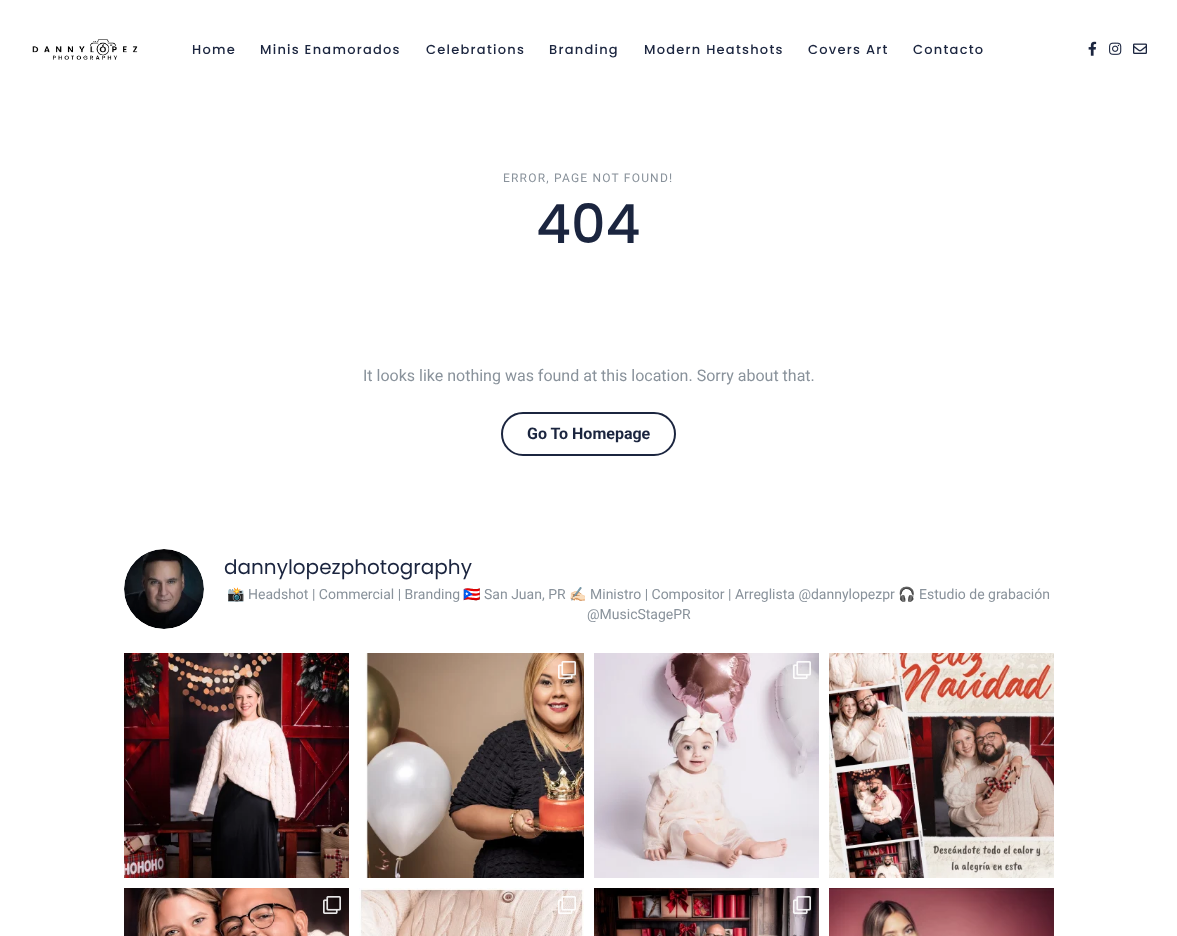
(async () => {
const canvas = document.querySelector("canvas")
canvas.width = 1177
canvas.height = 936
const c = canvas.getContext("2d")
c.miterLimit = 4
c.fontKerning = "normal"
function T(s,x,y){c.fillText(s,x,y)}
function R(x,y,w,h){c.fillRect(x,y,w,h)}
async function I(src,x,y,w,h){const img=new Image();img.src=src;await img.decode();c.drawImage(img,x,y,w,h)}
c.fillStyle="#fff"
R(0,0,1177,936)
await I("1.png",32,39,106,21)
c.letterSpacing="1.25px"
c.font="500 13px Poppins"
c.fillStyle="#1b253f"
T("Home",192,54)
T("Minis Enamorados",260,54)
T("Celebrations",426,54)
T("Branding",549,54)
T("Modern Heatshots",644,54)
T("Covers Art",808,54)
T("Contacto",913,54)
await I("2.png",1088,41,9,15)
await I("3.png",1109,42,13,13)
await I("4.png",1133,43,14,11)
c.letterSpacing="1.2px"
c.font="12px Roboto"
c.fillStyle="#89929b"
T("ERROR, PAGE NOT FOUND!",503,182)
c.letterSpacing="0px"
c.font="500 54px Poppins"
c.fillStyle="#1b253f"
T("404",536,243)
c.font="16px Roboto"
c.fillStyle="#89929b"
T("It looks like nothing was found at this location. Sorry about that.",363,381)
c.beginPath()
c.roundRect(502,413,173,42,21)
c.strokeStyle="#1b253f"
c.lineWidth=2
c.stroke()
c.font="bold 16px Roboto"
c.fillStyle="#1b253f"
T("Go To Homepage",527,439)
await I("5.png",124,549,80,80)
c.font="20px Poppins"
T("dannylopezphotography",224,574)
c.font="14px Noto Color Emoji"
c.fillStyle="#89929b"
T("📸",227,599)
c.font="14px Roboto"
T("Headshot | Commercial | Branding",248,599)
c.font="14px Noto Color Emoji"
T("🇵🇷",463,599)
c.font="14px Roboto"
T("San Juan, PR",484,599)
c.font="14px Noto Color Emoji"
T("✍🏻️",569,599)
c.font="14px Roboto"
T("Ministro | Compositor | Arreglista @dannylopezpr",590,599)
c.font="14px Noto Color Emoji"
T("🎧",898,599)
c.font="14px Roboto"
T("Estudio de grabación",919,599)
T("@MusicStagePR",587,619)
await I("6.png",124,653,225,225)
await I("7.png",365,653,219,225)
await I("8.png",558,661,18,18)
await I("9.png",594,653,225,225)
await I("10.png",793,661,18,18)
await I("11.png",829,653,225,225)
await I("12.png",124,888,225,48)
await I("13.png",323,896,18,18)
await I("14.png",359,888,225,48)
await I("15.png",558,896,18,18)
await I("16.png",594,888,225,48)
await I("17.png",793,896,18,18)
await I("18.png",829,888,225,48)
})()
